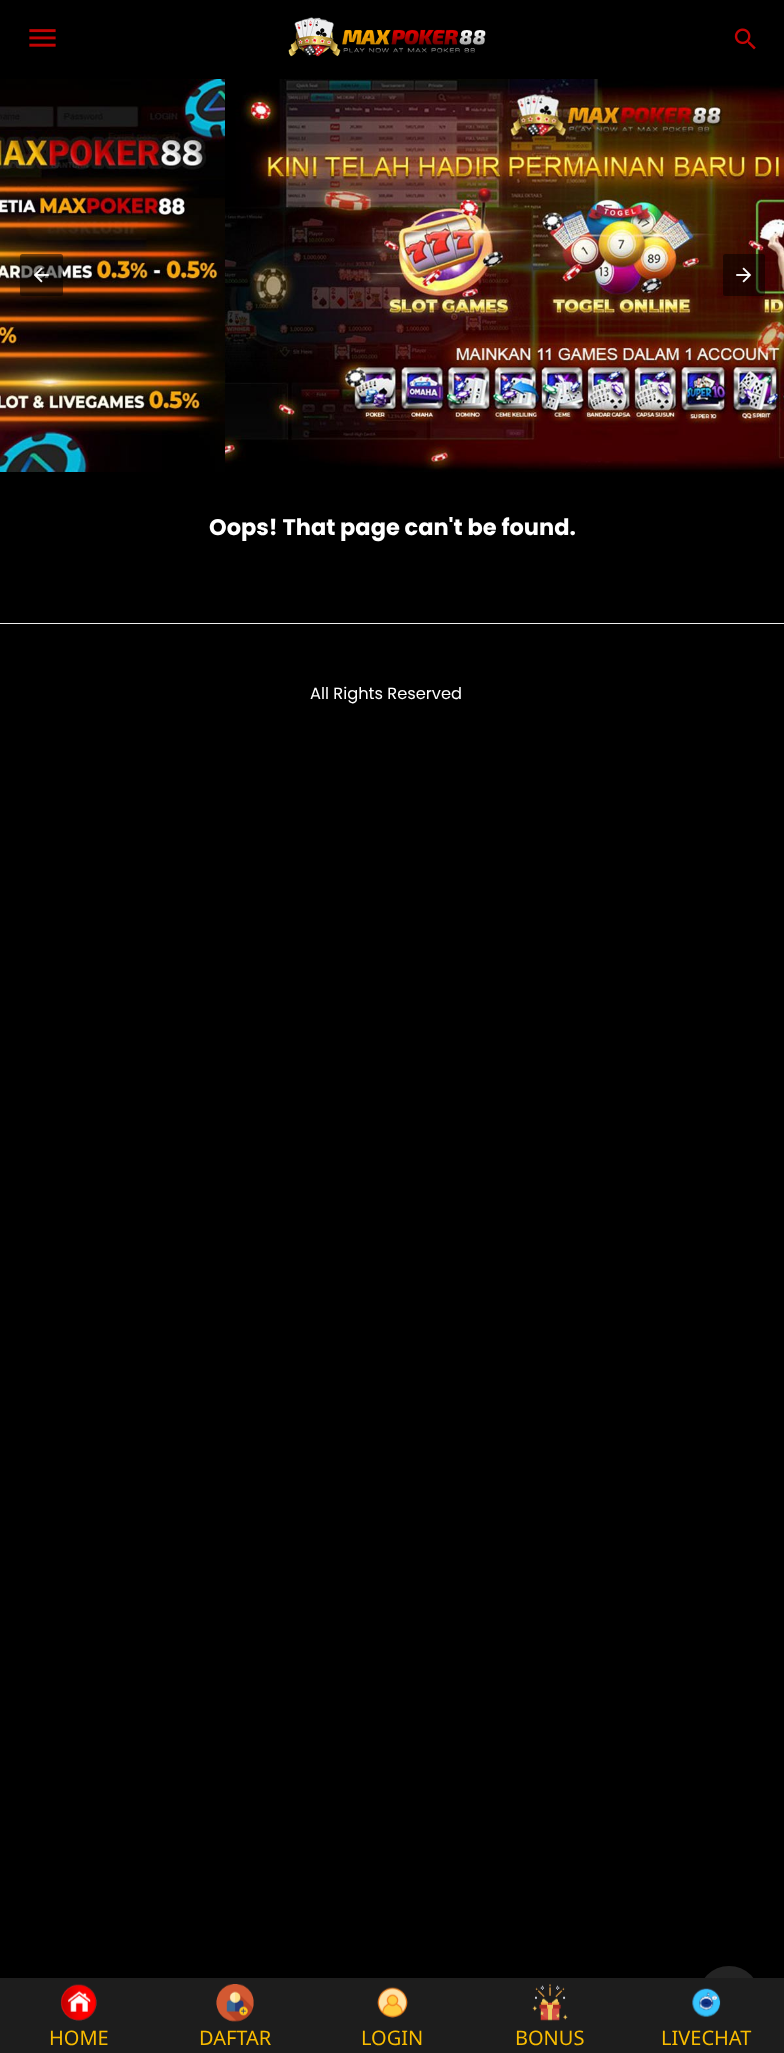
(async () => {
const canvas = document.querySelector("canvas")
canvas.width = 784
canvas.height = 2053
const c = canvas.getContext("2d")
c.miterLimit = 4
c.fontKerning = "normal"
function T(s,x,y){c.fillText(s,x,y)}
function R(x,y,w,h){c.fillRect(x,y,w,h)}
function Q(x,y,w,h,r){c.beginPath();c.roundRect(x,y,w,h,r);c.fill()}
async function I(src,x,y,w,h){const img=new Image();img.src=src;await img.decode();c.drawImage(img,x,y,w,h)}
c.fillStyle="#000"
R(0,0,784,2053)
await I("1.png",29,29,27,18)
await I("2.png",288,17,198,40)
await I("3.png",734,28,22,22)
await I("4.png",0,79,225,393)
await I("5.png",225,79,559,393)
c.fillStyle="#00000080"
Q(20,254,43,42,2.5)
await I("6.png",33,267,16,16)
Q(723,254,42,42,2.5)
await I("7.png",736,267,16,16)
c.font="bold 22.5px Poppins"
c.fillStyle="#fff"
T("Oops! That page can't be found.",209,535)
c.fillStyle="#eee"
R(0,623,784,1)
c.font="16.25px Poppins"
c.fillStyle="#fff"
T("All Rights Reserved",310,699)
c.fillStyle="#242424"
Q(698,1966,62,63,31)
c.fillStyle="#1d1d1d"
R(0,1978,784,75)
await I("8.png",60,1984,37,37)
c.font="20px Noto Sans"
c.fillStyle="#f9bc00"
T("HOME",49,2045)
await I("9.png",216,1984,38,38)
T("DAFTAR",199,2045)
await I("10.png",377,1987,31,31)
T("LOGIN",361,2045)
await I("11.png",532,1984,36,37)
T("BONUS",515,2045)
await I("12.png",692,1988,29,29)
T("LIVECHAT",661,2045)
})()
